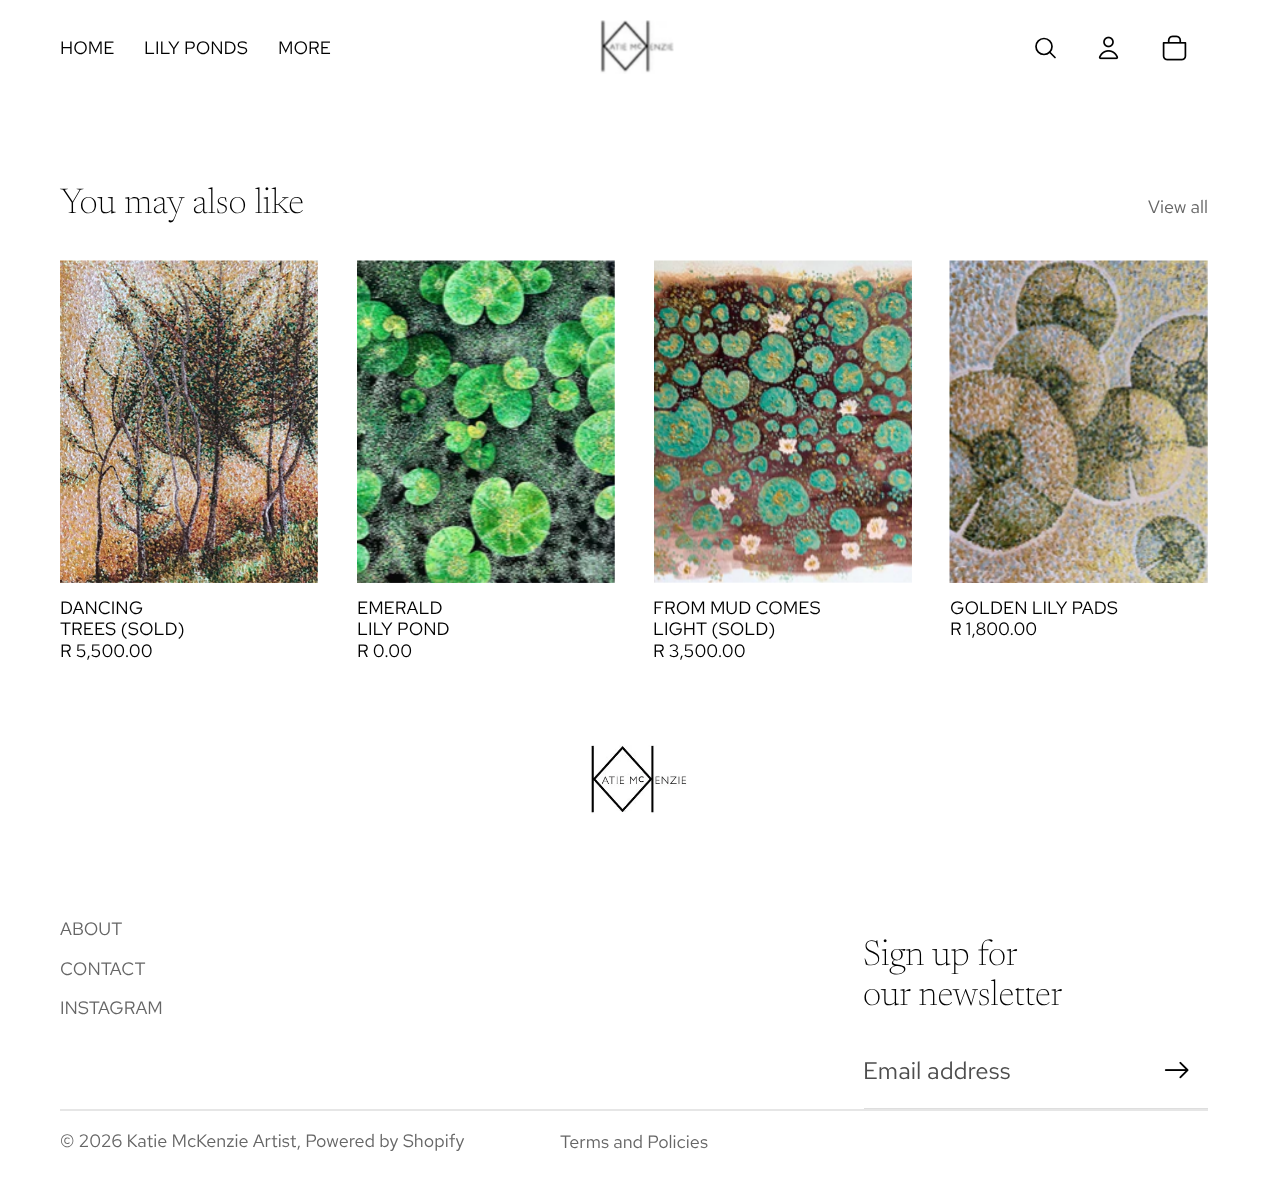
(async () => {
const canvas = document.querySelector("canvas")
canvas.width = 1267
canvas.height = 1180
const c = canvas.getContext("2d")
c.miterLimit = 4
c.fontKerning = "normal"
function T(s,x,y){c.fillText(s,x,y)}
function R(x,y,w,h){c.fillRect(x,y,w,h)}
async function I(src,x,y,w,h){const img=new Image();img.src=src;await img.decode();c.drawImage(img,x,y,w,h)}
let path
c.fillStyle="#fff"
R(0,0,1267,1180)
c.font="18px Red Hat Text"
c.fillStyle="#000"
T("HOME",60,54)
T("LILY PONDS",144,54)
T("MORE",278,54)
await I("1.png",600,20,74,54)
c.beginPath()
c.arc(1044,46.5,8,0,7)
c.strokeStyle="#000"
c.lineWidth=1.7
c.stroke()
path = new Path2D("M1049.5 52l5.5 5.5")
c.lineCap="round"
c.lineJoin="round"
c.stroke(path)
await I("2.png",1098,36,21,24)
await I("3.png",1162,35,25,26)
c.font="200 36px Newsreader"
T("You may also like",60,213)
c.font="18px Red Hat Text"
c.fillStyle="#666"
T("View all",1148,213)
await I("4.png",60,260,258,323)
c.fillStyle="#000"
T("DANCING",60,614)
T("TREES (SOLD)",60,635)
T("R 5,500.00",60,657)
await I("5.png",357,260,258,323)
T("EMERALD",357,614)
T("LILY POND",357,635)
T("R 0.00",357,657)
await I("6.png",654,260,258,323)
T("FROM MUD COMES",653,614)
T("LIGHT (SOLD)",653,635)
T("R 3,500.00",653,657)
await I("7.png",949,260,259,323)
T("GOLDEN LILY PADS",950,614)
T("R 1,800.00",950,635)
await I("8.png",591,745,96,69)
c.fillStyle="#666"
T("ABOUT",60,935)
T("CONTACT",60,975)
T("INSTAGRAM",60,1014)
c.font="200 36px Newsreader"
c.fillStyle="#000"
T("Sign up for",863,965)
T("our newsletter",863,1005)
c.fillStyle="#dedede"
path = new Path2D("M864 1108v2h344v-75v73z")
c.fill(path)
c.font="24px Red Hat Text"
c.fillStyle="#4d4d4d"
T("Email address",863,1079)
await I("9.png",1164,1061,25,18)
c.fillStyle="#e6e6e6"
R(60,1109,1148,2)
c.font="18px Red Hat Text"
c.fillStyle="#666"
T("© 2026 Katie McKenzie Artist, Powered by Shopify",60,1147)
T("Terms and Policies",560,1148)
})()
